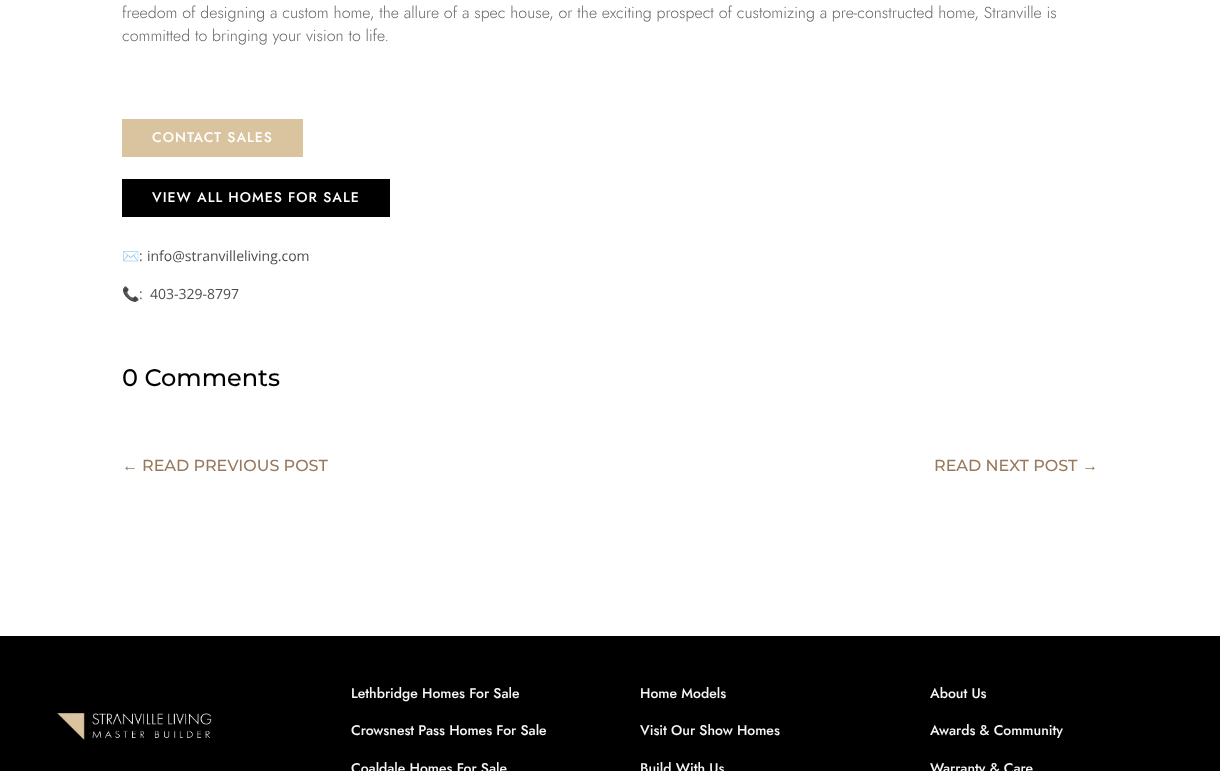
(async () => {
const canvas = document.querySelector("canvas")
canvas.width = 1220
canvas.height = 771
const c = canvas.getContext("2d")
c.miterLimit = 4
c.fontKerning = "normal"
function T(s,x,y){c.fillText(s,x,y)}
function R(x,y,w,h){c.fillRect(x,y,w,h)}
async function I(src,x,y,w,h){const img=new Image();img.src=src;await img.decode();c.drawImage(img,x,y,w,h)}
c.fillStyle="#fff"
R(0,0,1220,771)
c.font="300 16px Jost"
c.fillStyle="#666"
T("freedom of designing a custom home, the allure of a spec house, or the exciting prospect of customizing a pre-constructed home, Stranville is",122,18)
T("committed to bringing your vision to life.",122,41)
c.fillStyle="#dac49f"
R(122,119,181,38)
c.letterSpacing="1px"
c.font="500 14px Jost"
c.fillStyle="#fff"
T("CONTACT SALES",152,142)
c.fillStyle="#000"
R(122,179,268,38)
c.fillStyle="#fff"
T("VIEW ALL HOMES FOR SALE",152,202)
c.letterSpacing="0px"
c.font="14px Noto Color Emoji"
c.fillStyle="#666"
T("✉️",122,261)
c.font="14px Open Sans"
T(":",139,261)
c.fillStyle="#4e4e4e"
T("info@stranvilleliving.com",147,261)
c.font="14px Noto Color Emoji"
c.fillStyle="#666"
T("📞",122,299)
c.font="14px Open Sans"
T(":",139,299)
c.fillStyle="#4e4e4e"
T("403-329-8797",150,299)
c.font="500 24px Montserrat"
c.fillStyle="#000"
T("0 Comments",122,386)
c.font="16px Liberation Sans"
c.fillStyle="#98795c"
T("←",122,471)
c.font="500 16px Montserrat"
T("READ PREVIOUS POST",142,471)
T("READ NEXT POST",934,471)
c.font="16px Liberation Sans"
T("→",1082,471)
c.fillStyle="#000"
R(0,636,1220,135)
await I("1.png",57,713,155,27)
c.font="500 14px Jost"
c.fillStyle="#f6f6f6"
T("Lethbridge Homes For Sale",351,698)
T("Crowsnest Pass Homes For Sale",351,735)
T("Coaldale Homes For Sale",351,773)
T("Home Models",640,698)
T("Visit Our Show Homes",640,735)
T("Build With Us",640,773)
T("About Us",930,698)
T("Awards & Community",930,735)
T("Warranty & Care",930,773)
})()
